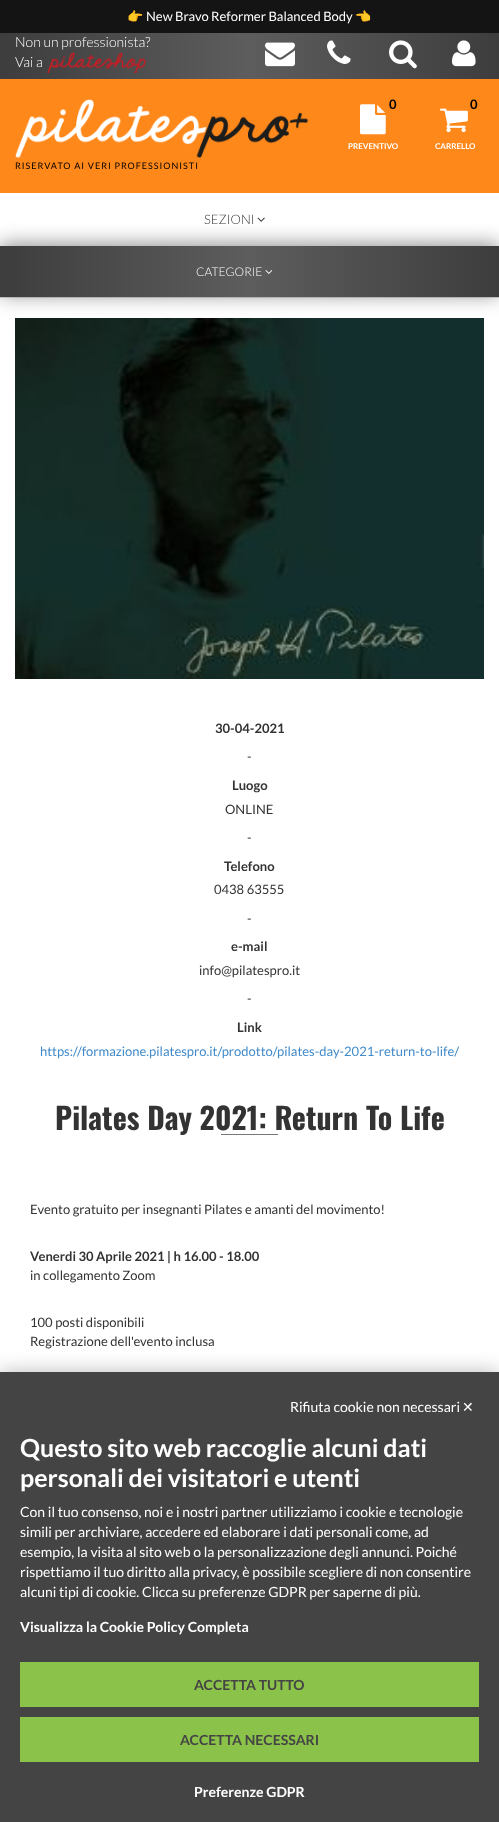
(async () => {
const canvas = document.querySelector("canvas")
canvas.width = 499
canvas.height = 1822
const c = canvas.getContext("2d")
c.miterLimit = 4
c.fontKerning = "normal"
function T(s,x,y){c.fillText(s,x,y)}
function R(x,y,w,h){c.fillRect(x,y,w,h)}
async function I(src,x,y,w,h){const img=new Image();img.src=src;await img.decode();c.drawImage(img,x,y,w,h)}
let gradient
c.fillStyle="#fff"
R(0,0,499,1822)
c.fillStyle="#141414"
R(0,0,499,33)
c.font="13px Noto Color Emoji"
c.fillStyle="#fff"
T("👉",127,21)
c.font="13px Lato"
T("New Bravo Reformer Balanced Body",146,21)
c.font="13px Noto Color Emoji"
T("👈",355,21)
c.fillStyle="#ccc"
R(0,297,499,1)
gradient = c.createLinearGradient(0,56,499,56)
gradient.addColorStop(0,"#3d3d3d")
gradient.addColorStop(.5,"#5d5d5d")
gradient.addColorStop(1,"#3d3d3d")
c.fillStyle = gradient
R(0,33,499,46)
c.font="300 14px Lato"
c.fillStyle="#fff"
T("Non un professionista?",15,47)
T("Vai a",15,67)
await I("1.png",47,52,99,22)
await I("2.png",265,42,30,25)
await I("3.png",327,40,24,24)
await I("4.png",389,40,28,29)
await I("5.png",452,40,24,27)
c.fillStyle="#ff881b"
R(0,79,499,114)
await I("6.png",360,104,26,31)
c.font="bold 13px Lato"
c.fillStyle="#000"
T("0",389,109)
c.font="bold 8px Lato"
c.fillStyle="#fff"
T("PREVENTIVO",348,149)
c.font="bold 13px Lato"
c.fillStyle="#000"
T("0",470,109)
await I("7.png",440,108,28,25)
c.font="bold 8px Lato"
c.fillStyle="#fff"
T("CARRELLO",435,149)
await I("8.png",15,99,294,59)
c.letterSpacing="1px"
c.font="9px Lato"
c.fillStyle="#000"
T("RISERVATO AI VERI PROFESSIONISTI",15,169)
c.fillStyle="#908f8f"
c.filter="blur(10px)"
c.beginPath()
c.rect(0,244,499,51)
c.fill()
c.filter="none"
c.letterSpacing="0px"
c.font="300 13px Lato"
c.fillStyle="#333"
T("SEZIONI",204,224)
await I("9.png",257,217,8,5)
gradient = c.createLinearGradient(0,272,499,272)
gradient.addColorStop(0,"#3d3d3d")
gradient.addColorStop(.5,"#5d5d5d")
gradient.addColorStop(1,"#3d3d3d")
c.fillStyle = gradient
R(0,246,499,51)
c.font="300 12px Lato"
c.fillStyle="#fff"
T("CATEGORIE",196,276)
await I("10.png",265,270,8,4)
await I("11.png",15,318,469,361)
c.font="bold 13px Lato"
c.fillStyle="#333"
T("30-04-2021",215,733)
c.font="13px Lato"
T("-",247,761)
c.font="bold 13px Lato"
T("Luogo",232,790)
c.font="13px Lato"
T("ONLINE",225,814)
T("-",247,842)
c.font="bold 13px Lato"
T("Telefono",224,871)
c.font="13px Lato"
T("0438 63555",214,894)
T("-",247,923)
c.font="bold 13px Lato"
T("e-mail",231,951)
c.font="13px Lato"
T("info@pilatespro.it",199,975)
T("-",247,1003)
c.font="bold 13px Lato"
T("Link",237,1032)
c.font="13px Lato"
c.fillStyle="#428bca"
T("https://formazione.pilatespro.it/prodotto/pilates-day-2021-return-to-life/",40,1056)
c.font="bold 30px Oswald"
c.fillStyle="#333"
T("Pilates Day 2021: Return To Life",55,1130)
c.fillStyle="#777"
R(221,1134,57,1)
c.font="13px Lato"
c.fillStyle="#333"
T("Evento gratuito per insegnanti Pilates e amanti del movimento!",30,1214)
c.font="bold 13px Lato"
T("Venerdi 30 Aprile 2021 | h 16.00 - 18.00",30,1261)
c.font="13px Lato"
T("in collegamento Zoom",30,1280)
T("100 posti disponibili",30,1327)
T("Registrazione dell'evento inclusa",30,1346)
c.fillStyle="#00000045"
c.filter="blur(10px)"
c.beginPath()
c.rect(0,1372,499,450)
c.fill()
c.filter="none"
c.fillStyle="#444"
R(0,1372,499,450)
c.font="14px Lato"
c.fillStyle="#fff"
T("Rifiuta cookie non necessari",290,1412)
c.font="14px DejaVu Sans"
T("✕",462,1412)
c.font="bold 25px Lato"
T("Questo sito web raccoglie alcuni dati",20,1457)
T("personali dei visitatori e utenti",20,1487)
c.font="14px Lato"
T("Con il tuo consenso, noi e i nostri partner utilizziamo i cookie e tecnologie",20,1517)
T("simili per archiviare, accedere ed elaborare i dati personali come, ad",20,1537)
T("esempio, la visita al sito web o la personalizzazione degli annunci. Poiché",20,1557)
T("rispettiamo il tuo diritto alla privacy, è possibile scegliere di non consentire",20,1577)
T("alcuni tipi di cookie. Clicca su preferenze GDPR per saperne di più.",20,1597)
c.font="bold 14px Lato"
T("Visualizza la Cookie Policy Completa",20,1632)
c.fillStyle="#8bc34a"
R(20,1662,459,45)
c.fillStyle="#444"
T("ACCETTA TUTTO",194,1690)
c.fillStyle="#8bc34a"
R(20,1717,459,45)
c.fillStyle="#444"
T("ACCETTA NECESSARI",180,1745)
c.fillStyle="#fff"
T("Preferenze GDPR",194,1797)
})()
